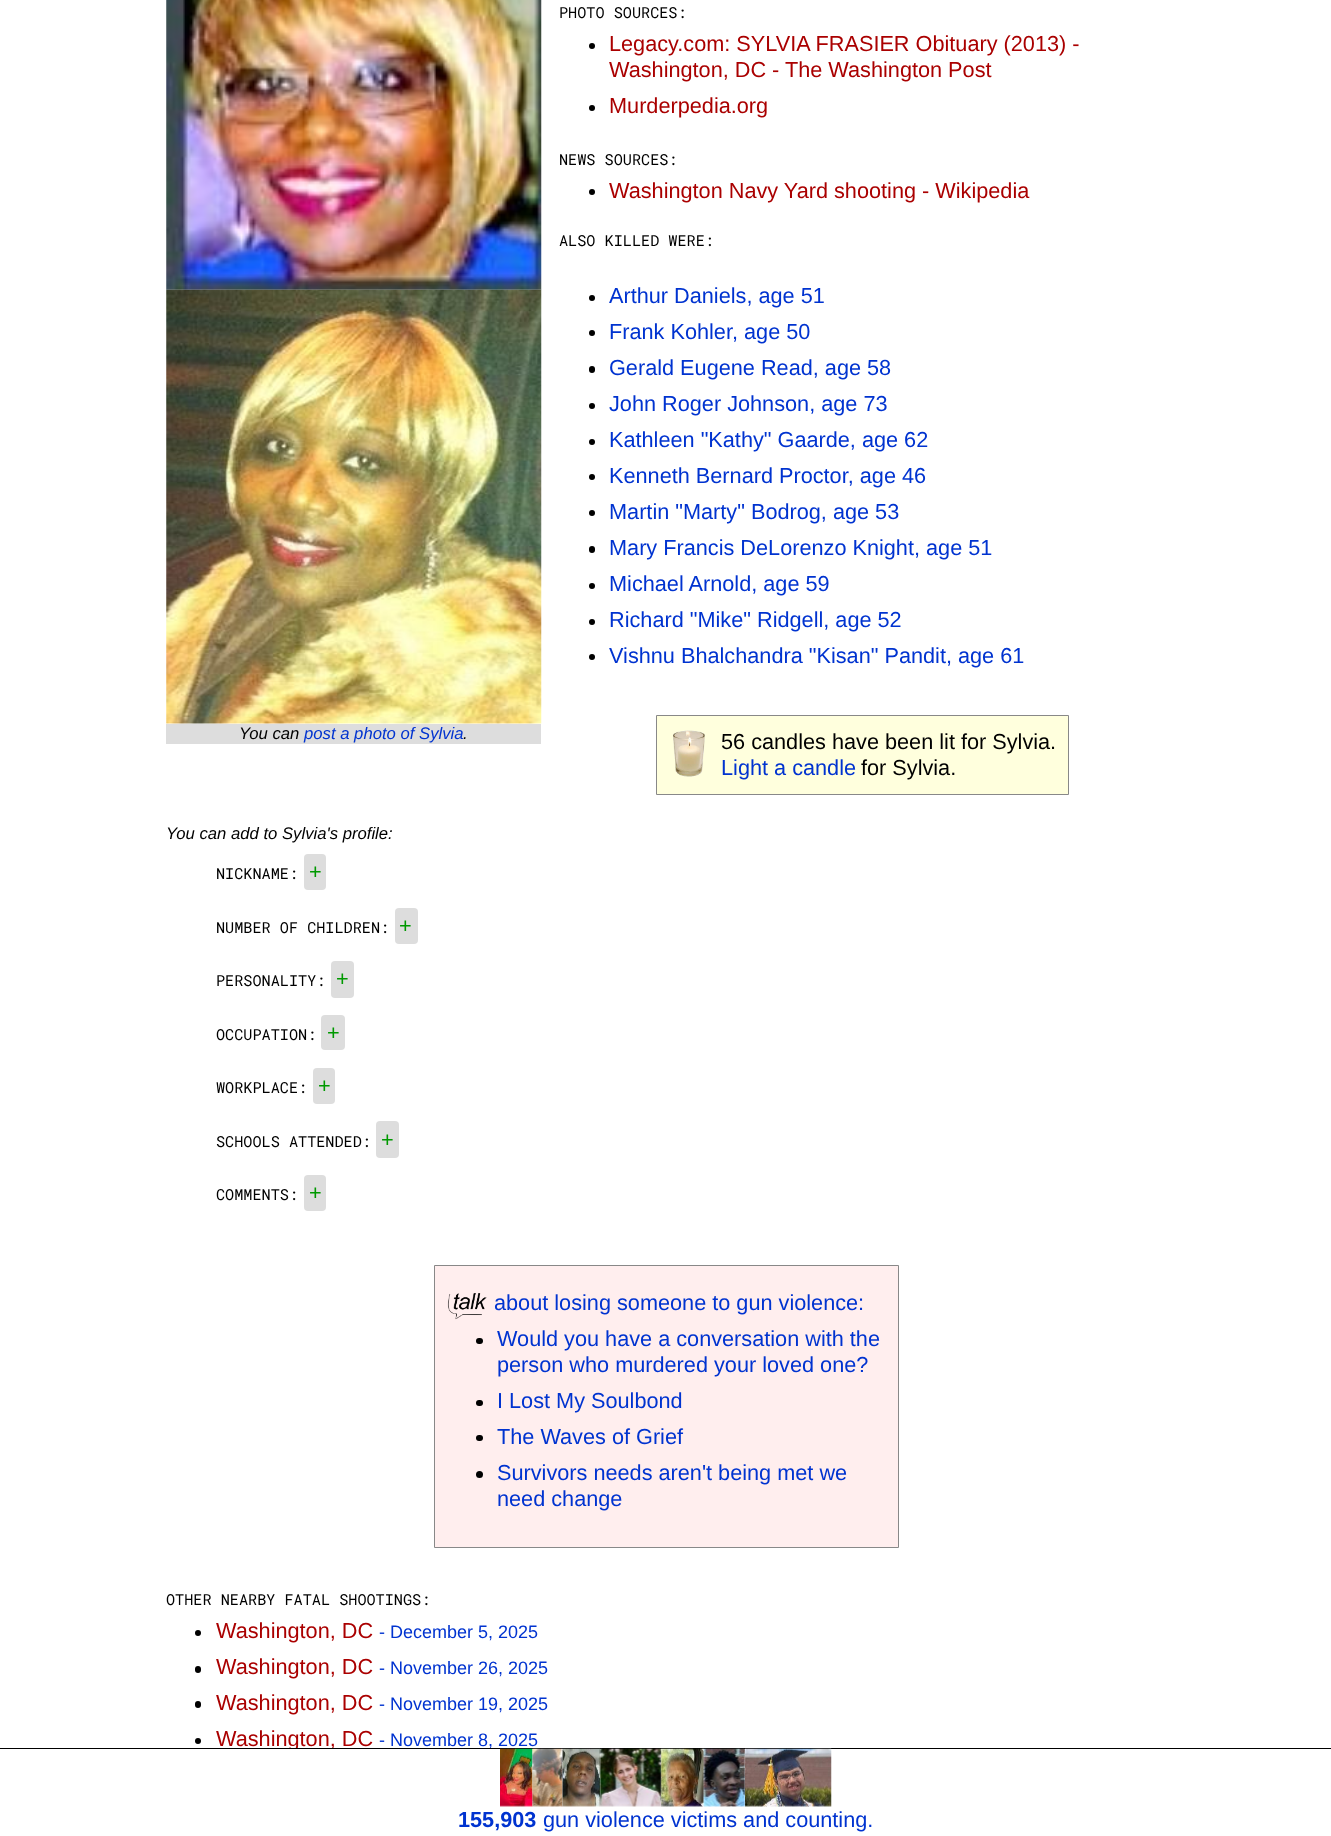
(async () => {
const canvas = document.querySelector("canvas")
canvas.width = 1331
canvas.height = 1836
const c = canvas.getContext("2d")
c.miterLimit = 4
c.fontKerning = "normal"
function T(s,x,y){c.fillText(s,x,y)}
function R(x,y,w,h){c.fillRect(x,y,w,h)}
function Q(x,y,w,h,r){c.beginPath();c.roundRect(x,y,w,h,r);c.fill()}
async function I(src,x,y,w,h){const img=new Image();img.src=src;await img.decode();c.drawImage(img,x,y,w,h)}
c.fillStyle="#fff"
R(0,0,1331,1836)
c.font="15.2px Roboto Mono"
c.fillStyle="#000"
T("PHOTO SOURCES:",559,18)
c.beginPath()
c.arc(592,46,3,0,7)
c.fill()
c.font="21.7px Liberation Sans"
c.fillStyle="#a00"
T("Legacy.com: SYLVIA FRASIER Obituary (2013) -",609,51)
T("Washington, DC - The Washington Post",609,77)
c.fillStyle="#000"
c.beginPath()
c.arc(592,108,3,0,7)
c.fill()
c.fillStyle="#a00"
T("Murderpedia.org",609,113)
c.font="15.2px Roboto Mono"
c.fillStyle="#000"
T("NEWS SOURCES:",559,165)
c.beginPath()
c.arc(592,192,3,0,7)
c.fill()
c.font="21.7px Liberation Sans"
c.fillStyle="#a00"
T("Washington Navy Yard shooting - Wikipedia",609,198)
c.font="15.2px Roboto Mono"
c.fillStyle="#000"
T("ALSO KILLED WERE:",559,246)
c.beginPath()
c.arc(592,298,3,0,7)
c.fill()
c.font="21.7px Liberation Sans"
c.fillStyle="#0033d0"
T("Arthur Daniels, age 51",609,303)
c.fillStyle="#000"
c.beginPath()
c.arc(592,333,3,0,7)
c.fill()
c.fillStyle="#0033d0"
T("Frank Kohler, age 50",609,339)
c.fillStyle="#000"
Q(589,366,6,7,3)
c.fillStyle="#0033d0"
T("Gerald Eugene Read, age 58",609,375)
c.fillStyle="#000"
c.beginPath()
c.arc(592,406,3,0,7)
c.fill()
c.fillStyle="#0033d0"
T("John Roger Johnson, age 73",609,411)
c.fillStyle="#000"
c.beginPath()
c.arc(592,442,3,0,7)
c.fill()
c.fillStyle="#0033d0"
T("Kathleen \"Kathy\" Gaarde, age 62",609,447)
c.fillStyle="#000"
c.beginPath()
c.arc(592,477,3,0,7)
c.fill()
c.fillStyle="#0033d0"
T("Kenneth Bernard Proctor, age 46",609,483)
c.fillStyle="#000"
c.beginPath()
c.arc(592,513,3,0,7)
c.fill()
c.fillStyle="#0033d0"
T("Martin \"Marty\" Bodrog, age 53",609,519)
c.fillStyle="#000"
Q(589,546,6,7,3)
c.fillStyle="#0033d0"
T("Mary Francis DeLorenzo Knight, age 51",609,555)
c.fillStyle="#000"
c.beginPath()
c.arc(592,586,3,0,7)
c.fill()
c.fillStyle="#0033d0"
T("Michael Arnold, age 59",609,591)
c.fillStyle="#000"
c.beginPath()
c.arc(592,622,3,0,7)
c.fill()
c.fillStyle="#0033d0"
T("Richard \"Mike\" Ridgell, age 52",609,627)
c.fillStyle="#000"
c.beginPath()
c.arc(592,657,3,0,7)
c.fill()
c.fillStyle="#0033d0"
T("Vishnu Bhalchandra \"Kisan\" Pandit, age 61",609,663)
await I("1.png",166,0,376,290)
await I("2.png",166,289,376,435)
c.fillStyle="#ddd"
R(166,724,375,20)
c.font="italic 16.7px Liberation Sans"
c.fillStyle="#000"
T("You can",239,739)
c.fillStyle="#0033d0"
T("post a photo of Sylvia",304,739)
c.fillStyle="#000"
T(".",463,739)
c.fillStyle="#ffd"
c.beginPath()
c.rect(656.5,715.5,412,79)
c.fill()
c.strokeStyle="#888"
c.stroke()
await I("3.png",673,730,32,47)
c.font="21.7px Liberation Sans"
c.fillStyle="#000"
T("56 candles have been lit for Sylvia.",721,749)
c.fillStyle="#0033d0"
T("Light a candle",721,775)
c.fillStyle="#000"
T("for Sylvia.",861,775)
c.font="italic 16.7px Liberation Sans"
T("You can add to Sylvia's profile:",166,839)
c.font="15.2px Roboto Mono"
T("NICKNAME:",216,879)
c.fillStyle="#ddd"
Q(304,854,22,36,4)
c.font="21.7px Liberation Sans"
c.fillStyle="#090"
T("+",309,879)
c.font="15.2px Roboto Mono"
c.fillStyle="#000"
T("NUMBER OF CHILDREN:",216,933)
c.fillStyle="#ddd"
Q(395,908,23,36,4)
c.font="21.7px Liberation Sans"
c.fillStyle="#090"
T("+",399,933)
c.font="15.2px Roboto Mono"
c.fillStyle="#000"
T("PERSONALITY:",216,986)
c.fillStyle="#ddd"
Q(331,961,23,37,4)
c.font="21.7px Liberation Sans"
c.fillStyle="#090"
T("+",336,986)
c.font="15.2px Roboto Mono"
c.fillStyle="#000"
T("OCCUPATION:",216,1040)
c.fillStyle="#ddd"
Q(321,1015,24,35,4)
c.font="21.7px Liberation Sans"
c.fillStyle="#090"
T("+",327,1040)
c.font="15.2px Roboto Mono"
c.fillStyle="#000"
T("WORKPLACE:",216,1093)
c.fillStyle="#ddd"
Q(313,1068,22,36,4)
c.font="21.7px Liberation Sans"
c.fillStyle="#090"
T("+",318,1093)
c.font="15.2px Roboto Mono"
c.fillStyle="#000"
T("SCHOOLS ATTENDED:",216,1147)
c.fillStyle="#ddd"
Q(376,1121,23,37,4)
c.font="21.7px Liberation Sans"
c.fillStyle="#090"
T("+",381,1147)
c.font="15.2px Roboto Mono"
c.fillStyle="#000"
T("COMMENTS:",216,1200)
c.fillStyle="#ddd"
Q(304,1175,22,36,4)
c.font="21.7px Liberation Sans"
c.fillStyle="#090"
T("+",309,1200)
c.fillStyle="#fee"
c.beginPath()
c.rect(434.5,1265.5,464,282)
c.fill()
c.stroke()
await I("4.png",447,1293,40,27)
c.fillStyle="#0033d0"
T("about losing someone to gun violence:",494,1310)
c.fillStyle="#000"
Q(476,1338,7,6,3)
c.fillStyle="#0033d0"
T("Would you have a conversation with the",497,1346)
T("person who murdered your loved one?",497,1372)
c.fillStyle="#000"
Q(476,1400,7,6,3)
c.fillStyle="#0033d0"
T("I Lost My Soulbond",497,1408)
c.fillStyle="#000"
Q(476,1435,7,6,3)
c.fillStyle="#0033d0"
T("The Waves of Grief",497,1444)
c.fillStyle="#000"
c.beginPath()
c.arc(479.5,1474.5,3.5,0,7)
c.fill()
c.fillStyle="#0033d0"
T("Survivors needs aren't being met we",497,1480)
T("need change",497,1506)
c.font="15.2px Roboto Mono"
c.fillStyle="#000"
T("OTHER NEARBY FATAL SHOOTINGS:",166,1605)
c.beginPath()
c.arc(198,1633,3,0,7)
c.fill()
c.font="21.7px Liberation Sans"
c.fillStyle="#a00"
T("Washington, DC",216,1638)
c.font="18px Liberation Sans"
c.fillStyle="#0033d0"
T("- December 5, 2025",379,1638)
c.fillStyle="#000"
Q(195,1666,6,7,3)
c.font="21.7px Liberation Sans"
c.fillStyle="#a00"
T("Washington, DC",216,1674)
c.font="18px Liberation Sans"
c.fillStyle="#0033d0"
T("- November 26, 2025",379,1674)
c.fillStyle="#000"
Q(195,1701,6,7,3)
c.font="21.7px Liberation Sans"
c.fillStyle="#a00"
T("Washington, DC",216,1710)
c.font="18px Liberation Sans"
c.fillStyle="#0033d0"
T("- November 19, 2025",379,1710)
c.fillStyle="#000"
c.beginPath()
c.arc(198,1741,3,0,7)
c.fill()
c.font="21.7px Liberation Sans"
c.fillStyle="#a00"
T("Washington, DC",216,1746)
c.font="18px Liberation Sans"
c.fillStyle="#0033d0"
T("- November 8, 2025",379,1746)
c.fillStyle="#fff"
R(289,1749,8,2)
c.fillStyle="#000"
R(0,1748,1331,1)
await I("5.png",500,1748,33,59)
await I("6.png",532,1748,31,59)
await I("7.png",562,1748,38,59)
await I("8.png",599,1748,63,59)
await I("9.png",661,1748,43,59)
await I("10.png",703,1748,43,59)
await I("11.png",745,1748,87,59)
c.font="bold 21.7px Liberation Sans"
c.fillStyle="#0033d0"
T("155,903",458,1827)
c.font="21.7px Liberation Sans"
T("gun violence victims and counting.",543,1827)
})()
